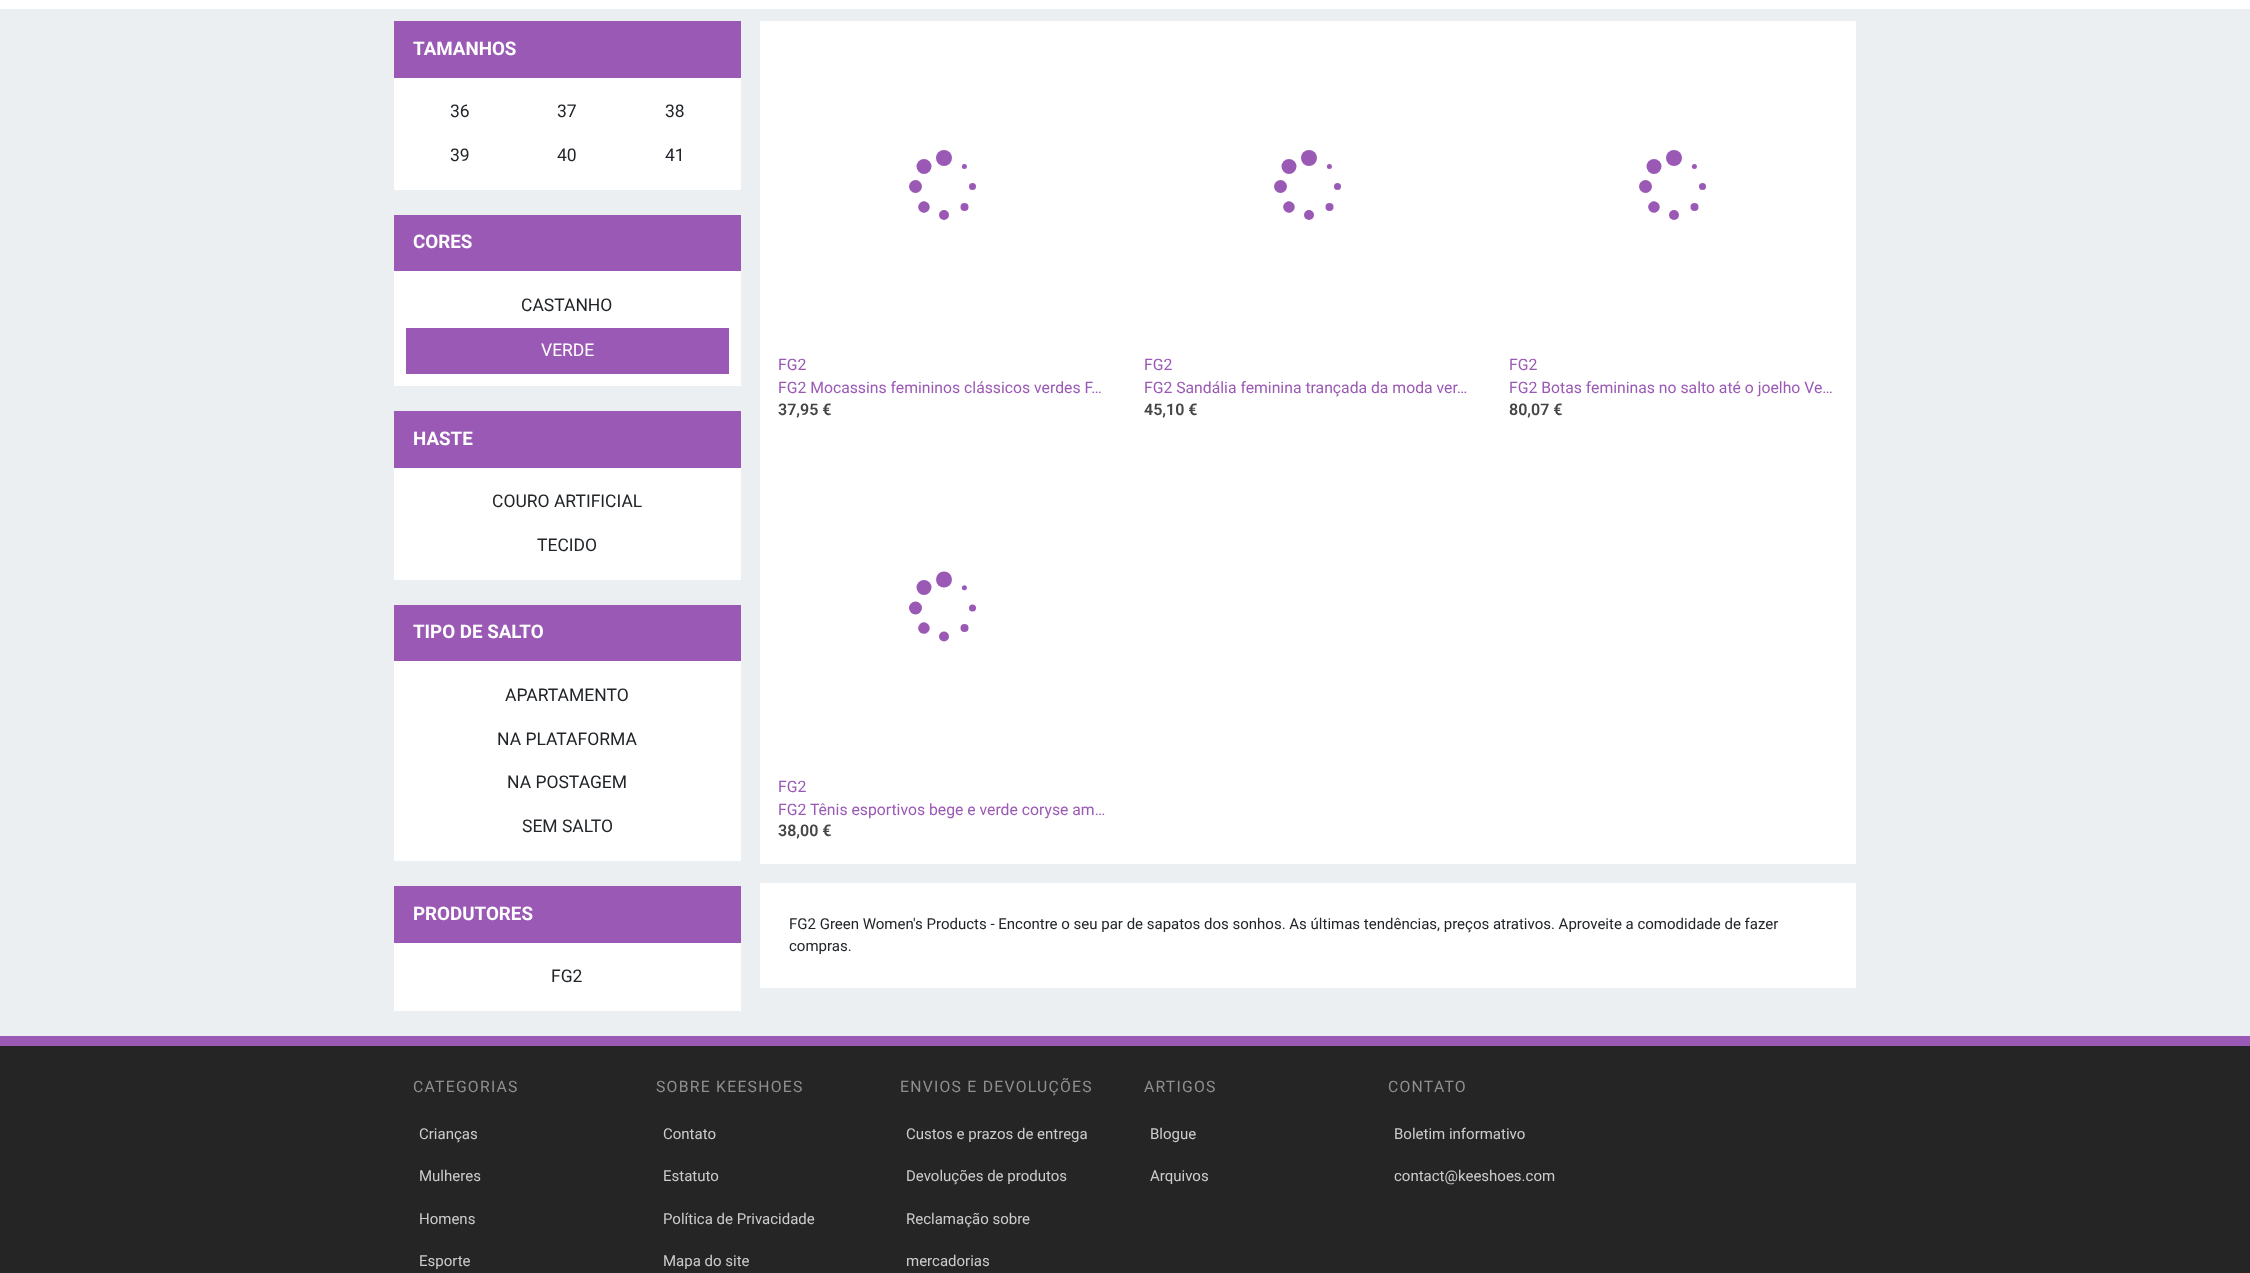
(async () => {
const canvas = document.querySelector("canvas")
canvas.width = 2250
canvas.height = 1273
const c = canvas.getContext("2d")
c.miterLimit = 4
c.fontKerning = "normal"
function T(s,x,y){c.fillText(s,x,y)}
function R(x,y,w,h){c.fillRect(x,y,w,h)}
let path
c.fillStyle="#fff"
R(0,0,2250,1273)
c.fillStyle="#eceff1"
R(0,9,2250,1027)
c.fillStyle="#fff"
R(394,78,347,112)
c.fillStyle="#9b59b6"
R(394,21,347,57)
c.font="bold 18.75px Roboto"
c.fillStyle="#fff"
T("TAMANHOS",413,55)
c.font="17.5px Roboto"
c.fillStyle="#212529"
T("36",450,117)
T("37",557,117)
T("38",665,117)
T("39",450,161)
T("40",557,161)
T("41",665,161)
c.fillStyle="#fff"
R(394,271,347,115)
c.fillStyle="#9b59b6"
R(394,215,347,56)
c.font="bold 18.75px Roboto"
c.fillStyle="#fff"
T("CORES",413,248)
c.font="17.5px Roboto"
c.fillStyle="#212529"
T("CASTANHO",521,311)
c.fillStyle="#9b59b6"
R(406,328,323,46)
c.fillStyle="#fff"
T("VERDE",541,356)
R(394,468,347,112)
c.fillStyle="#9b59b6"
R(394,411,347,57)
c.font="bold 18.75px Roboto"
c.fillStyle="#fff"
T("HASTE",413,445)
c.font="17.5px Roboto"
c.fillStyle="#212529"
T("COURO ARTIFICIAL",492,507)
T("TECIDO",537,551)
c.fillStyle="#fff"
R(394,661,347,200)
c.fillStyle="#9b59b6"
R(394,605,347,56)
c.font="bold 18.75px Roboto"
c.fillStyle="#fff"
T("TIPO DE SALTO",413,638)
c.font="17.5px Roboto"
c.fillStyle="#212529"
T("APARTAMENTO",505,701)
T("NA PLATAFORMA",497,745)
T("NA POSTAGEM",507,788)
T("SEM SALTO",522,832)
c.fillStyle="#fff"
R(394,943,347,68)
c.fillStyle="#9b59b6"
R(394,886,347,57)
c.font="bold 18.75px Roboto"
c.fillStyle="#fff"
T("PRODUTORES",413,920)
c.font="17.5px Roboto"
c.fillStyle="#212529"
T("FG2",551,982)
c.fillStyle="#fff"
R(760,21,1096,843)
c.fillStyle="#9b59b6"
c.beginPath()
c.arc(924,166.5,7.5,0,7)
c.fill()
c.beginPath()
c.arc(944,158,8,0,7)
c.fill()
c.beginPath()
c.arc(964.4,166.4,2.5,0,7)
c.fill()
c.beginPath()
c.arc(915.5,186.5,6.5,0,7)
c.fill()
c.beginPath()
c.arc(972.5,186.5,3.5,0,7)
c.fill()
path = new Path2D("M920 203c-5.5 5 2.5 13.5 8 8c5.5-5.5-3-13.5-8-8z")
c.fill(path)
c.beginPath()
c.arc(964.5,207,4,0,7)
c.fill()
c.beginPath()
c.arc(944,215,5,0,7)
c.fill()
c.font="15.75px Roboto"
T("FG2",778,370)
T("FG2 Mocassins femininos clássicos verdes F…",778,393)
c.font="600 16px Roboto"
c.fillStyle="#454545"
T("37,95 €",778,415)
c.fillStyle="#9b59b6"
c.beginPath()
c.arc(1289,166.5,7.5,0,7)
c.fill()
c.beginPath()
c.arc(1309,158,8,0,7)
c.fill()
c.beginPath()
c.arc(1329.4,166.4,2.5,0,7)
c.fill()
c.beginPath()
c.arc(1280.5,186.5,6.5,0,7)
c.fill()
c.beginPath()
c.arc(1337.5,186.5,3.5,0,7)
c.fill()
path = new Path2D("M1285 203c-5.5 5 2.5 13.5 8 8c5.5-5.5-3-13.5-8-8z")
c.fill(path)
c.beginPath()
c.arc(1329.5,207,4,0,7)
c.fill()
c.beginPath()
c.arc(1309,215,5,0,7)
c.fill()
c.font="15.75px Roboto"
T("FG2",1144,370)
T("FG2 Sandália feminina trançada da moda ver…",1144,393)
c.font="600 16px Roboto"
c.fillStyle="#454545"
T("45,10 €",1144,415)
c.fillStyle="#9b59b6"
c.beginPath()
c.arc(1654,166.5,7.5,0,7)
c.fill()
c.beginPath()
c.arc(1674,158,8,0,7)
c.fill()
c.beginPath()
c.arc(1694.4,166.4,2.5,0,7)
c.fill()
c.beginPath()
c.arc(1645.5,186.5,6.5,0,7)
c.fill()
c.beginPath()
c.arc(1702.5,186.5,3.5,0,7)
c.fill()
path = new Path2D("M1650 203c-5.5 5 2.5 13.5 8 8c5.5-5.5-3-13.5-8-8z")
c.fill(path)
c.beginPath()
c.arc(1694.5,207,4,0,7)
c.fill()
c.beginPath()
c.arc(1674,215,5,0,7)
c.fill()
c.font="15.75px Roboto"
T("FG2",1509,370)
T("FG2 Botas femininas no salto até o joelho Ve…",1509,393)
c.font="600 16px Roboto"
c.fillStyle="#454545"
T("80,07 €",1509,415)
c.fillStyle="#9b59b6"
c.beginPath()
c.arc(924,587.5,7.5,0,7)
c.fill()
c.beginPath()
c.arc(944,579.5,8,0,7)
c.fill()
c.beginPath()
c.arc(964.4,587.7,2.5,0,7)
c.fill()
c.beginPath()
c.arc(915.5,608,6.5,0,7)
c.fill()
c.beginPath()
c.arc(972.5,608,3.5,0,7)
c.fill()
path = new Path2D("M920 624c-5.5 5.5 2.5 13.5 8 8c5.5-5-3-13.5-8-8z")
c.fill(path)
c.beginPath()
c.arc(964.5,628,4,0,7)
c.fill()
c.beginPath()
c.arc(944,636.5,5,0,7)
c.fill()
c.font="15.75px Roboto"
T("FG2",778,792)
T("FG2 Tênis esportivos bege e verde coryse am…",778,815)
c.font="600 16px Roboto"
c.fillStyle="#454545"
T("38,00 €",778,836)
c.fillStyle="#fff"
R(760,883,1096,105)
c.font="15px Roboto"
c.fillStyle="#212529"
T("FG2 Green Women's Products - Encontre o seu par de sapatos dos sonhos. As últimas tendências, preços atrativos. Aproveite a comodidade de fazer",789,929)
T("compras.",789,951)
c.fillStyle="#252525"
R(0,1046,2250,227)
c.fillStyle="#9b59b6"
R(0,1036,2250,10)
c.letterSpacing="1.25px"
c.font="15.75px Roboto"
c.fillStyle="#8f8f8f"
T("CATEGORIAS",413,1092)
c.letterSpacing="0px"
c.font="15px Roboto"
c.fillStyle="#ccc"
T("Crianças",419,1139)
T("Mulheres",419,1181)
T("Homens",419,1224)
T("Esporte",419,1266)
c.letterSpacing="1.25px"
c.font="15.75px Roboto"
c.fillStyle="#8f8f8f"
T("SOBRE KEESHOES",656,1092)
c.letterSpacing="0px"
c.font="15px Roboto"
c.fillStyle="#ccc"
T("Contato",663,1139)
T("Estatuto",663,1181)
T("Política de Privacidade",663,1224)
T("Mapa do site",663,1266)
c.letterSpacing="1.25px"
c.font="15.75px Roboto"
c.fillStyle="#8f8f8f"
T("ENVIOS E DEVOLUÇÕES",900,1092)
c.letterSpacing="0px"
c.font="15px Roboto"
c.fillStyle="#ccc"
T("Custos e prazos de entrega",906,1139)
T("Devoluções de produtos",906,1181)
T("Reclamação sobre",906,1224)
T("mercadorias",906,1266)
c.letterSpacing="1.25px"
c.font="15.75px Roboto"
c.fillStyle="#8f8f8f"
T("ARTIGOS",1144,1092)
c.letterSpacing="0px"
c.font="15px Roboto"
c.fillStyle="#ccc"
T("Blogue",1150,1139)
T("Arquivos",1150,1181)
c.letterSpacing="1.25px"
c.font="15.75px Roboto"
c.fillStyle="#8f8f8f"
T("CONTATO",1388,1092)
c.letterSpacing="0px"
c.font="15px Roboto"
c.fillStyle="#ccc"
T("Boletim informativo",1394,1139)
T("contact@keeshoes.com",1394,1181)
})()
